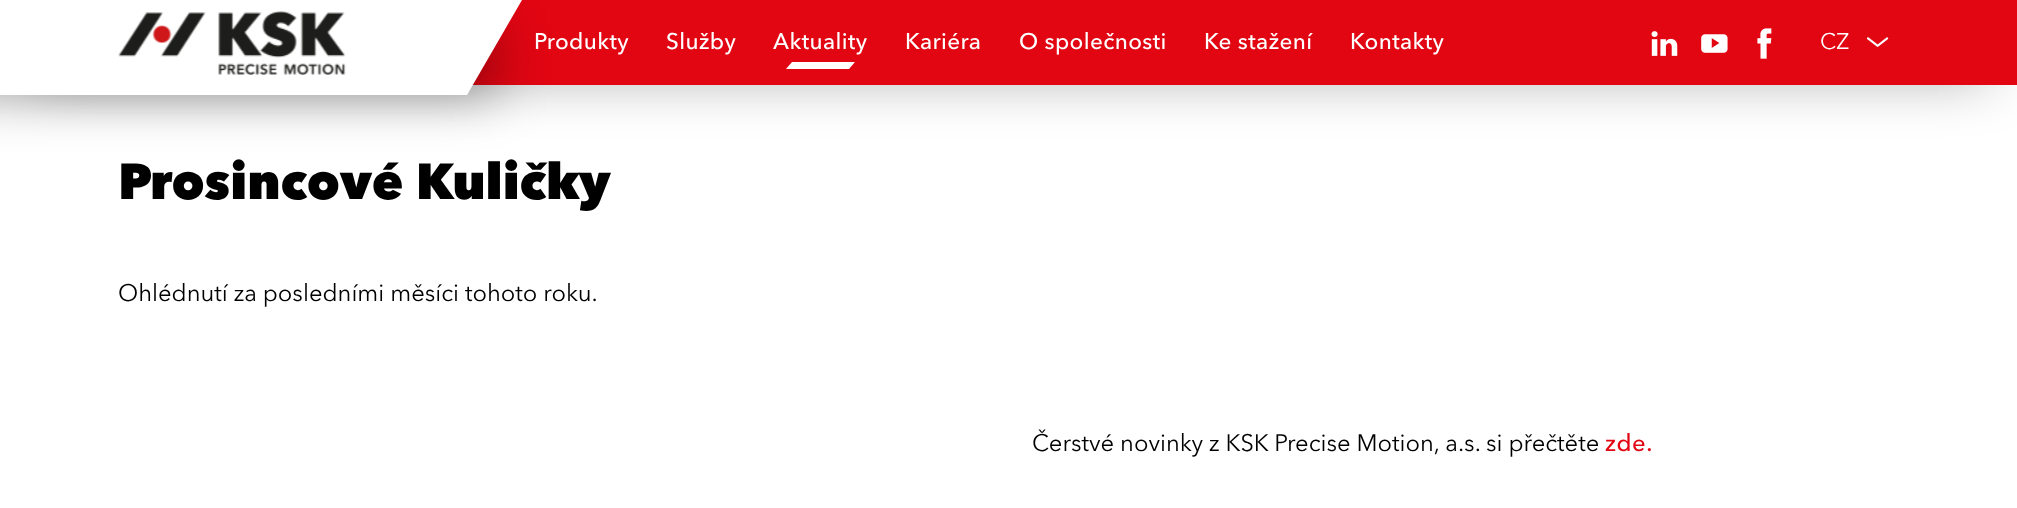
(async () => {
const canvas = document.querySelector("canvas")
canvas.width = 2017
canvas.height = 508
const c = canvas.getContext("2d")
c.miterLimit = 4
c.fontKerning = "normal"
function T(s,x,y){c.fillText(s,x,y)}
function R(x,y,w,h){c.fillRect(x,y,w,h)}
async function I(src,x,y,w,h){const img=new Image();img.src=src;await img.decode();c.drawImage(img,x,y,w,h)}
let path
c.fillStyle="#fff"
R(0,0,2017,508)
c.fillStyle="#00000080"
c.filter="blur(29.5px)"
c.beginPath()
c.rect(28,41,1962,30)
c.fill()
c.filter="none"
c.fillStyle="#e20613"
R(472,0,1545,85)
c.fillStyle="#0000005c"
c.filter="blur(26px)"
c.beginPath()
c.rect(-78,25,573,70)
c.fill()
c.filter="none"
c.fillStyle="#fff"
path = new Path2D("M-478 0h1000l-55 95h-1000z")
c.fill(path)
await I("1.png",118,11,228,64)
c.letterSpacing="0.4px"
c.font="500 22.5px Avenir Next"
T("Produkty",534,49)
T("Služby",666,49)
T("Aktuality",773,49)
path = new Path2D("M792 62h63l-6 7h-63z")
c.fill(path)
T("Kariéra",905,49)
T("O společnosti",1019,49)
T("Ke stažení",1204,49)
T("Kontakty",1350,49)
await I("2.png",1651,31,27,25)
await I("3.png",1701,34,27,19)
await I("4.png",1757,28,15,31)
c.letterSpacing="0px"
c.font="22.5px Avenir Next"
T("CZ",1820,49)
await I("5.png",1866,37,23,10)
c.font="900 50px Avenir Next"
c.fillStyle="#000"
T("Prosincové Kuličky",118,199)
c.font="23.75px Avenir Next"
T("Ohlédnutí za posledními měsíci tohoto roku.",118,301)
T("Čerstvé novinky z KSK Precise Motion, a.s. si přečtěte",1032,451)
c.letterSpacing="0.5px"
c.font="500 23.75px Avenir Next"
c.fillStyle="#e20613"
T("zde.",1605,451)
})()
